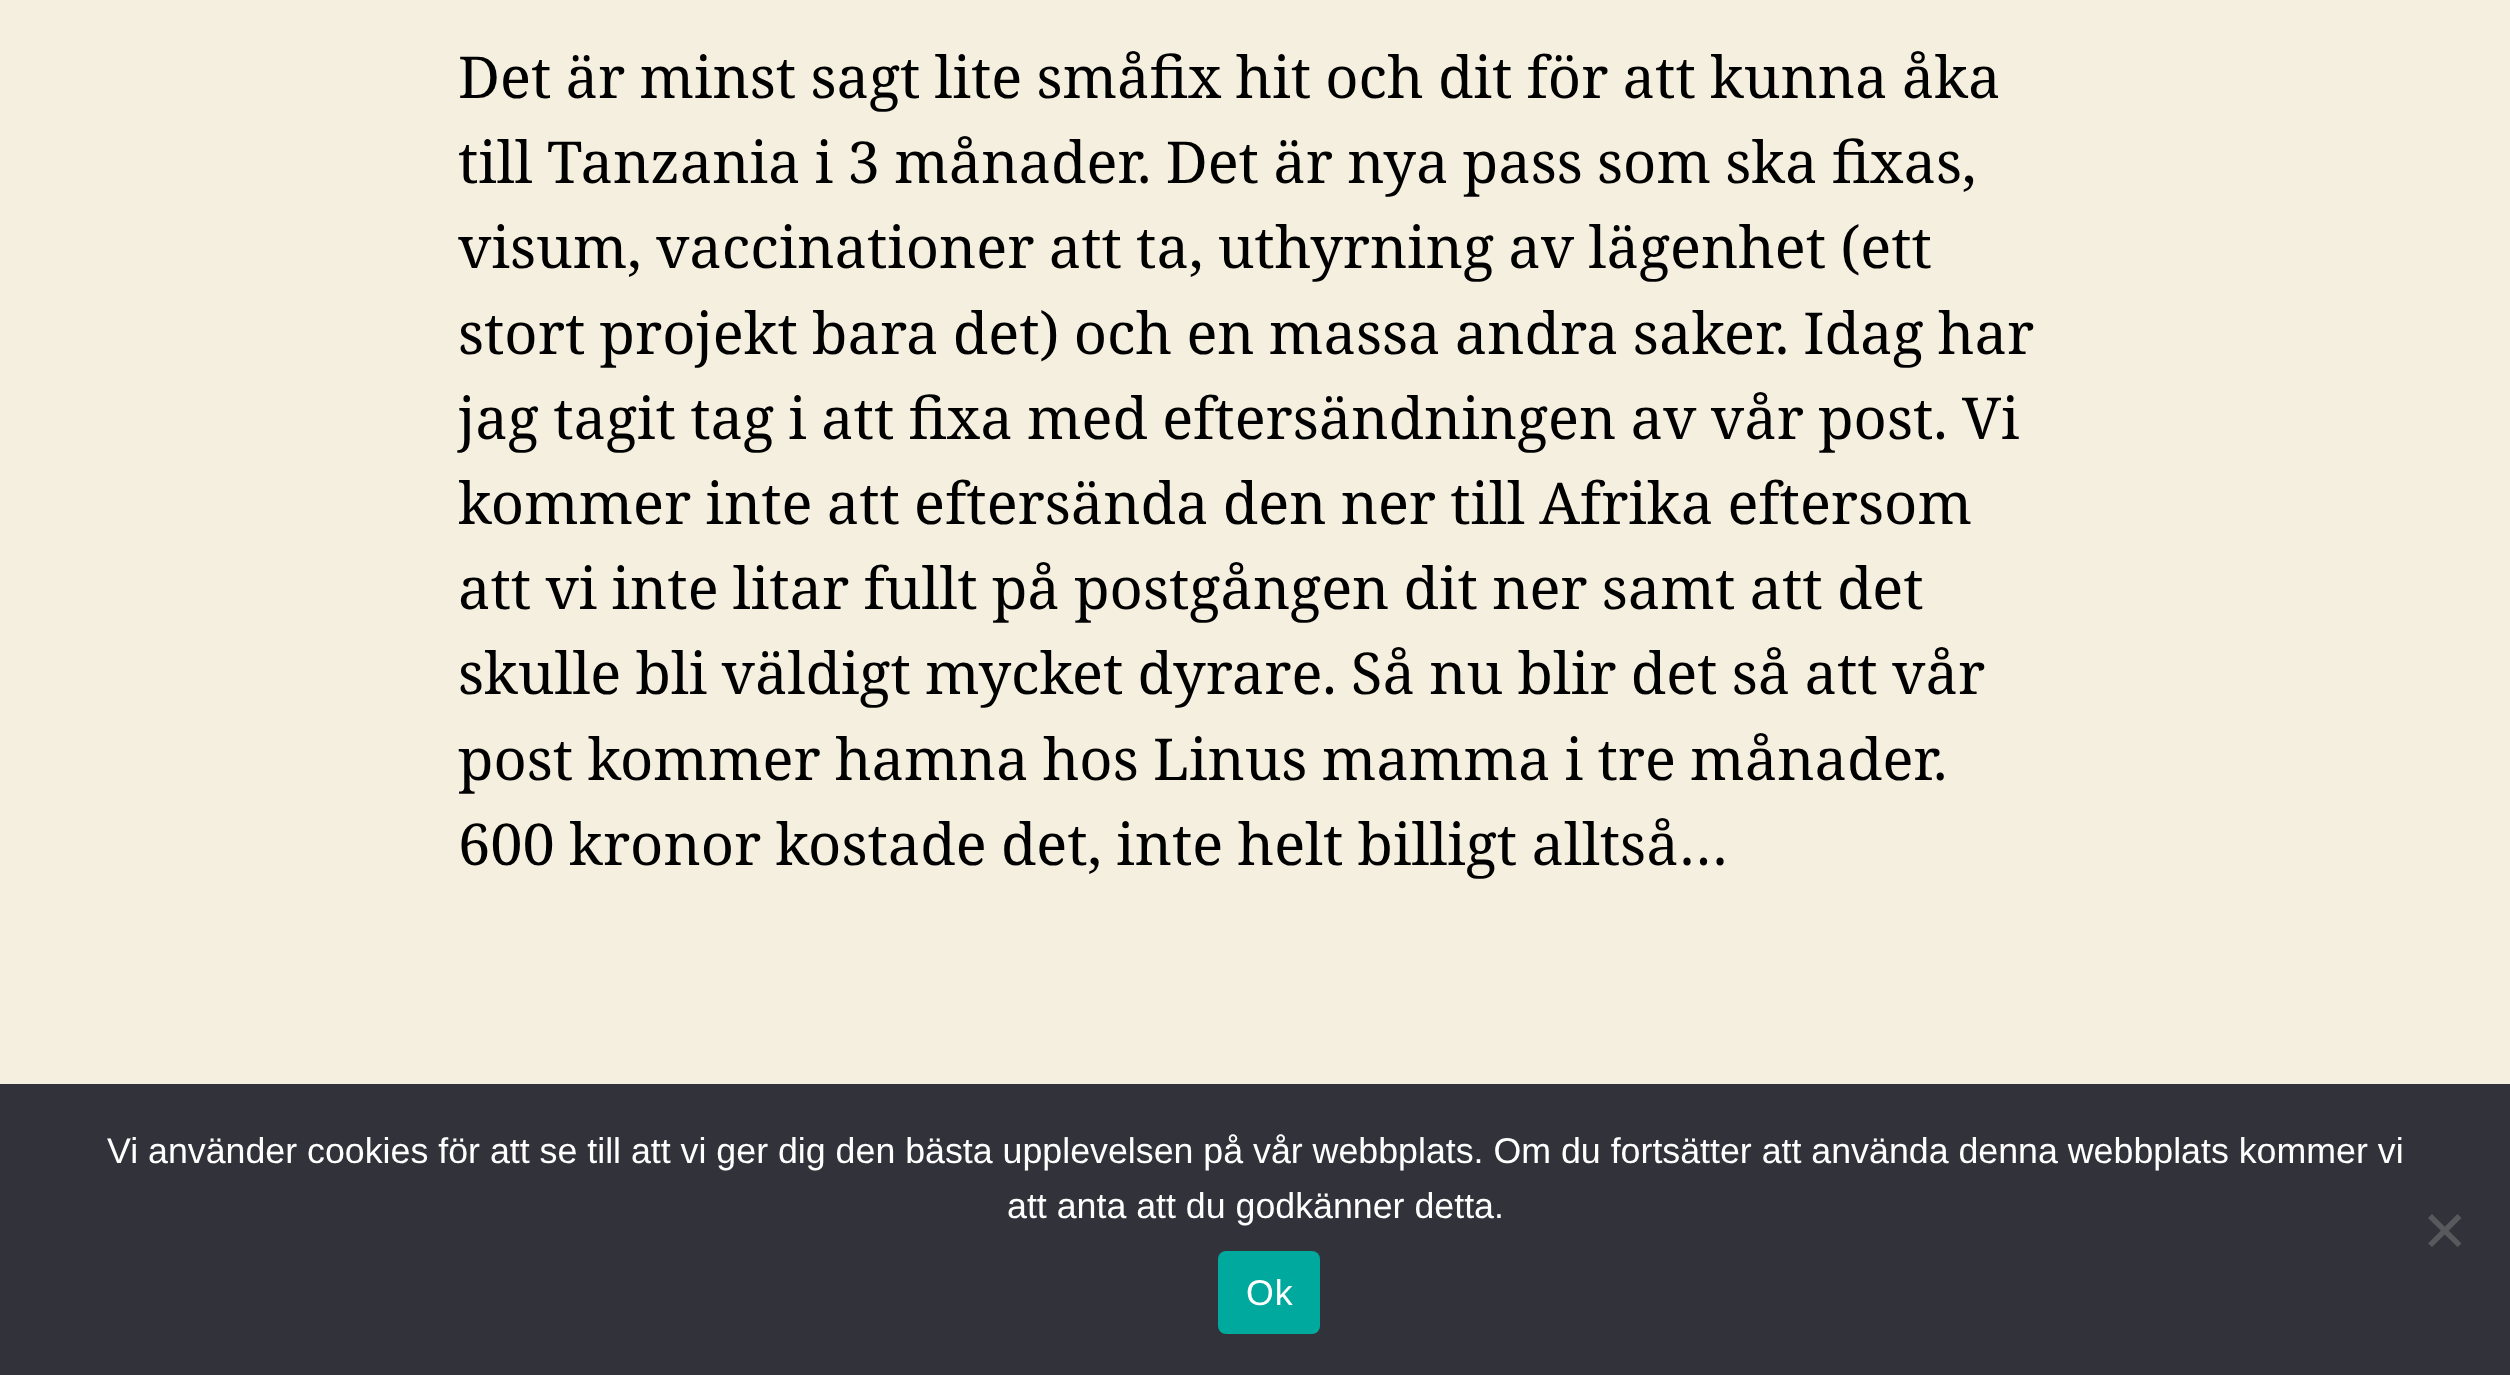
(async () => {
const canvas = document.querySelector("canvas")
canvas.width = 2510
canvas.height = 1375
const c = canvas.getContext("2d")
c.miterLimit = 4
c.fontKerning = "normal"
function T(s,x,y){c.fillText(s,x,y)}
function R(x,y,w,h){c.fillRect(x,y,w,h)}
function Q(x,y,w,h,r){c.beginPath();c.roundRect(x,y,w,h,r);c.fill()}
let path
c.fillStyle="#f5efe0"
R(0,0,2510,1375)
c.wordSpacing="-0.75px"
c.font="57.75px Noto Serif"
c.fillStyle="#000"
T("Det är minst sagt lite småfix hit och dit för att kunna åka",458,98)
T("till Tanzania i 3 månader. Det är nya pass som ska fixas,",458,183)
T("visum, vaccinationer att ta, uthyrning av lägenhet (ett",458,268)
T("stort projekt bara det) och en massa andra saker. Idag har",458,354)
T("jag tagit tag i att fixa med eftersändningen av vår post. Vi",458,439)
T("kommer inte att eftersända den ner till Afrika eftersom",458,524)
T("att vi inte litar fullt på postgången dit ner samt att det",458,609)
T("skulle bli väldigt mycket dyrare. Så nu blir det så att vår",458,694)
T("post kommer hamna hos Linus mamma i tre månader.",458,780)
T("600 kronor kostade det, inte helt billigt alltså…",458,865)
c.fillStyle="#32323a"
R(0,1084,2510,291)
c.wordSpacing="0px"
c.font="35.75px Liberation Sans"
c.fillStyle="#fff"
T("Vi använder cookies för att se till att vi ger dig den bästa upplevelsen på vår webbplats. Om du fortsätter att använda denna webbplats kommer vi",107,1163)
T("att anta att du godkänner detta.",1007,1218)
c.fillStyle="#59595d"
path = new Path2D("M2457.5 1214l4 4l-29.5 29l-4-3.5z")
c.fill(path)
path = new Path2D("M2428 1218l4-4l29.5 29.5l-4 3.5z")
c.fill(path)
c.fillStyle="#00a99d"
Q(1218,1251,102,83,8)
c.letterSpacing="1px"
c.fillStyle="#fff"
T("Ok",1246,1305)
})()
